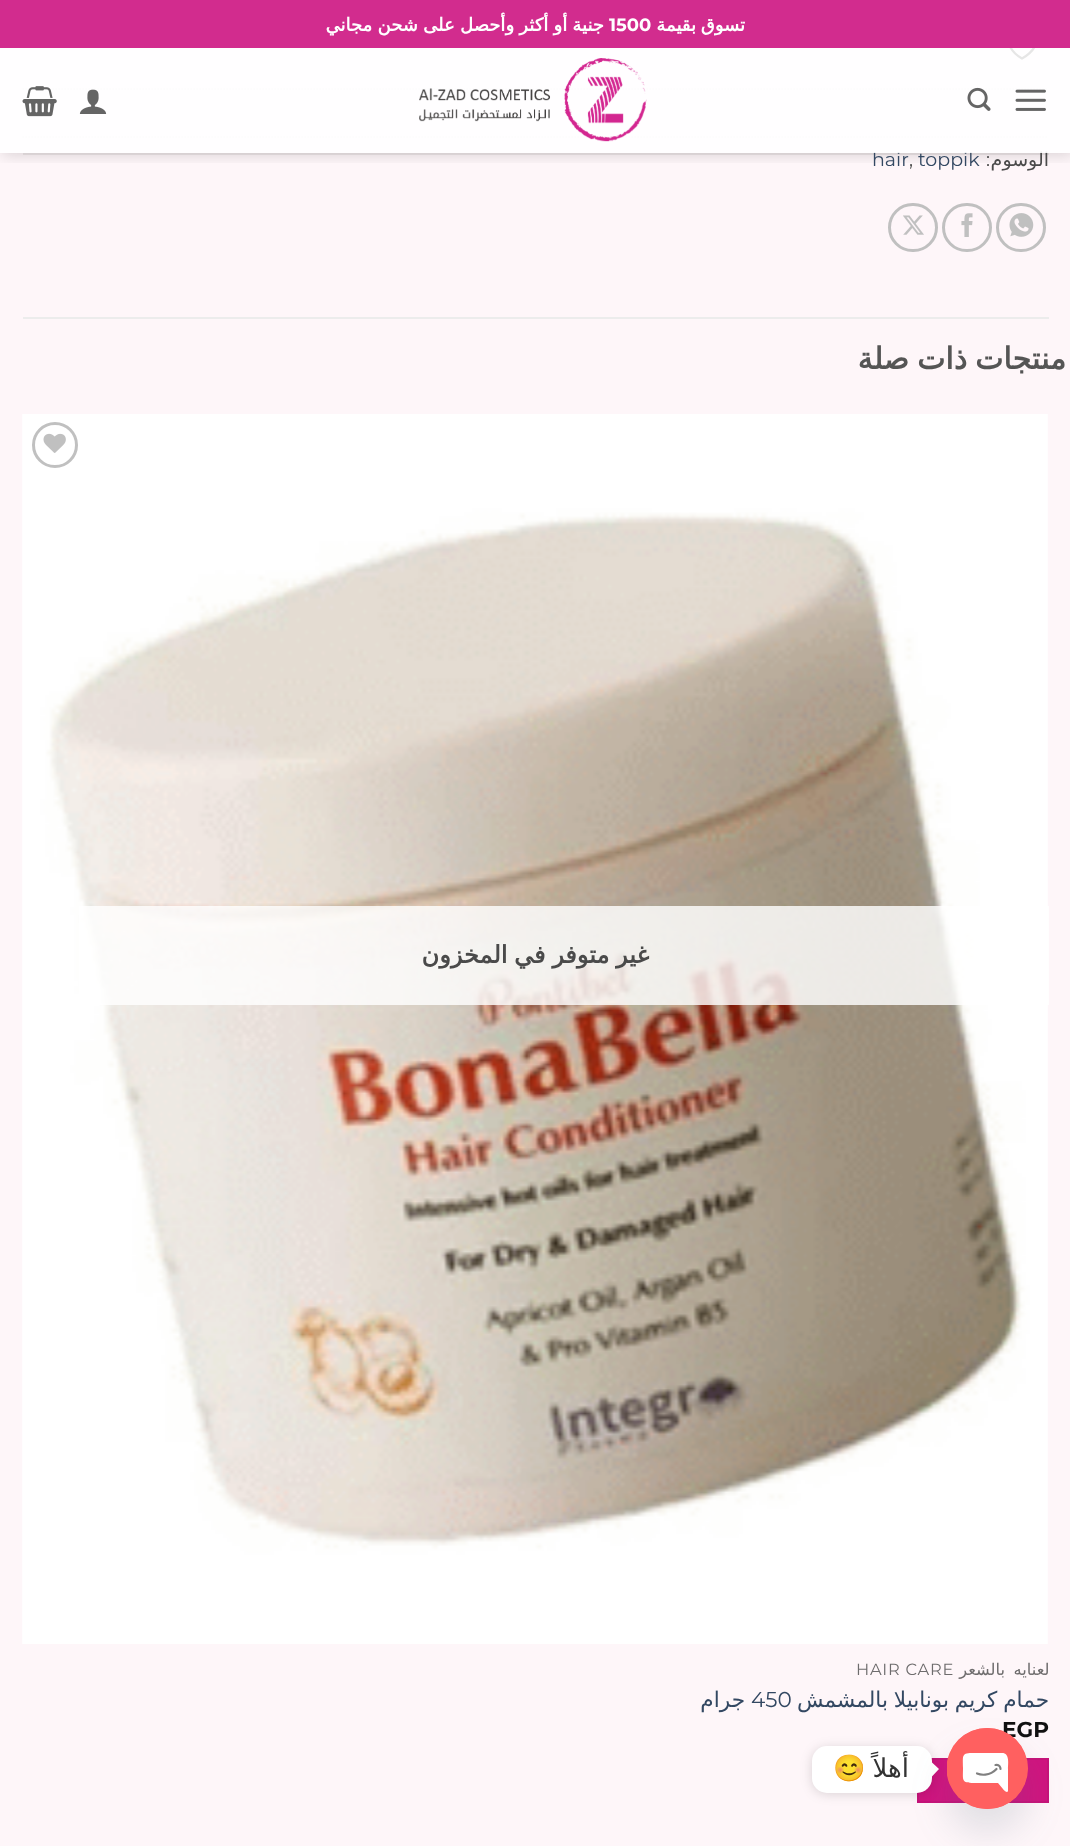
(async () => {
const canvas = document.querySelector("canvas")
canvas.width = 1070
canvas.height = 1846
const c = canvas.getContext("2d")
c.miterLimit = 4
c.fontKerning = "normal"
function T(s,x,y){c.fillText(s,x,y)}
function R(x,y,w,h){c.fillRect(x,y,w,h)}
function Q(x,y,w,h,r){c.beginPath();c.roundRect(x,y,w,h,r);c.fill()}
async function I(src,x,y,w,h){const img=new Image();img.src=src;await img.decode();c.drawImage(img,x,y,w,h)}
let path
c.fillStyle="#fef6f9"
R(0,0,1070,1846)
path = new Path2D("M1036.5 40c0-8-11.5-9.5-14.5-3c-3.5-8.5-19.5-3.5-11.5 10.5c2.5 4.5 7 8.5 11.5 11c0 0 14.5-7.5 14.5-18.5z")
c.strokeStyle="#000"
c.lineWidth=2.3
c.lineCap="round"
c.lineJoin="round"
c.stroke(path)
path = new Path2D("M22.5 89h1026")
c.strokeStyle="#ddd"
c.lineWidth=1.5
c.lineCap="butt"
c.lineJoin="miter"
c.setLineDash([1.5,1.5])
c.stroke(path)
path = new Path2D("M22.5 137h1026")
c.stroke(path)
c.save()
c.beginPath()
c.rect(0,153,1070,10)
c.clip()
c.fillStyle="#00000026"
c.filter="blur(7.5px)"
c.beginPath()
c.rect(2,2,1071,153)
c.fill()
c.filter="none"
c.restore()
c.fillStyle="#d22c8e"
R(0,0,1070,48)
c.wordSpacing="-1px"
c.direction="rtl"
c.font="bold 18px DejaVu Sans"
c.fillStyle="#fff"
T("تسوق بقيمة",745,31)
c.wordSpacing="0px"
c.direction="ltr"
c.font="bold 18px Montserrat"
T("1500",609,31)
c.wordSpacing="-0.5px"
c.direction="rtl"
c.font="bold 18px DejaVu Sans"
T("جنية أو أكثر وأحصل على شحن مجاني",604,31)
c.wordSpacing="0px"
c.font="19px DejaVu Sans"
c.fillStyle="#4a4a4a"
T("الوسوم",1049,166)
c.direction="ltr"
c.font="19px Montserrat"
c.fillStyle="#334862"
T("toppik",918,166)
T("hair",872,166)
c.fillStyle="#ffffffe6"
R(0,48,1070,105)
await I("1.png",1015,89,31,22)
await I("2.png",967,87,24,24)
await I("3.png",419,58,228,84)
await I("4.png",79,89,28,25)
await I("5.png",22,86,35,31)
c.fillStyle="#4a4a4a1a"
R(23,153,1026,2)
c.direction="rtl"
c.fillStyle="#4a4a4a"
T(":",990,166)
c.direction="ltr"
T(",",909,166)
c.beginPath()
c.roundRect(997.5,204.5,47,46,23)
c.strokeStyle="#c0c0c0"
c.lineWidth=3
c.setLineDash([])
c.stroke()
await I("6.png",1009,213,25,24)
c.beginPath()
c.roundRect(943.5,204.5,47,46,23)
c.stroke()
await I("7.png",961,213,12,24)
c.beginPath()
c.roundRect(889.5,204.5,47,46,23)
c.stroke()
await I("8.png",903,215,21,20)
c.fillStyle="#ececec"
R(23,317,1026,2)
c.letterSpacing="1.5px"
c.wordSpacing="-3px"
c.direction="rtl"
c.font="bold 30px DejaVu Sans"
c.fillStyle="#555"
T("منتجات ذات صلة",1066,369)
await I("9.png",22,414,1026,1230)
c.beginPath()
c.arc(55,445,21.5,0,7)
c.stroke()
await I("10.png",43,433,23,20)
c.fillStyle="#ffffffcf"
R(79,906,970,99)
c.letterSpacing="0px"
c.wordSpacing="-1px"
c.font="bold 24px DejaVu Sans"
c.fillStyle="#4a4a4a"
T("غير متوفر في المخزون",649,963)
c.save()
c.beginPath()
c.rect(23,1661,1026,19)
c.clip()
c.letterSpacing="0.75px"
c.wordSpacing="0px"
c.font="16.25px DejaVu Sans"
c.fillStyle="#6e6c6d"
T("العنايه",1054,1675)
c.restore()
c.letterSpacing="0.75px"
c.wordSpacing="0px"
c.font="16.25px DejaVu Sans"
c.fillStyle="#6e6c6d"
T("بالشعر",1005,1675)
c.direction="ltr"
c.font="16.25px Montserrat"
T("HAIR CARE",856,1675)
c.letterSpacing="0px"
c.wordSpacing="-1px"
c.direction="rtl"
c.font="21.6px DejaVu Sans"
c.fillStyle="#334862"
T("حمام كريم بونابيلا بالمشمش",1049,1707)
c.wordSpacing="0px"
c.direction="ltr"
c.font="21.6px Montserrat"
T("450",751,1707)
c.direction="rtl"
c.font="21.6px DejaVu Sans"
T("جرام",745,1707)
c.direction="ltr"
c.font="bold 21.6px Montserrat"
c.fillStyle="#111"
T("EGP",1002,1737)
c.fillStyle="#d0147f"
c.beginPath()
c.rect(918,1759,130,43)
c.fill()
c.strokeStyle="#c61379"
c.lineWidth=2
c.stroke()
c.fillStyle="#00000026"
c.filter="blur(6px)"
c.beginPath()
c.roundRect(812,1748,120,46,15)
c.fill()
c.filter="none"
c.fillStyle="#fff"
Q(812,1746,120,47,15)
path = new Path2D("M931.5 1777v-15l7.5 7z")
c.fill(path)
c.fillStyle="#49687e29"
c.filter="blur(18px)"
c.beginPath()
c.roundRect(947,1752,81,81,40.5)
c.fill()
c.filter="none"
c.fillStyle="#ff6060"
c.beginPath()
c.arc(987.5,1768.5,40.5,0,7)
c.fill()
c.save()
c.beginPath()
c.rect(947,1728,81,81)
c.clip()
c.beginPath()
c.arc(987,1768.5,40.5,0,7)
c.fill()
c.restore()
c.fillStyle="#fff"
path = new Path2D("M1002 1753h-28c-13 0-11 2-11 15c0 12-2 15 11 15h24l5 6c0 0 4 5 5 2v-22c0-5 2-16-6-16z")
c.fill(path)
path = new Path2D("M977 1773.5c3.5 1.5 12.5 3 19.5-4.5m4 0c0-1.5-1-5-5-4")
c.strokeStyle="#808080"
c.lineWidth=2.2
c.lineCap="round"
c.lineJoin="round"
c.stroke(path)
c.direction="rtl"
c.font="26px DejaVu Sans"
c.fillStyle="#333"
T("أهلاً",909,1777)
c.font="26px Noto Color Emoji"
T("😊",866,1777)
})()
